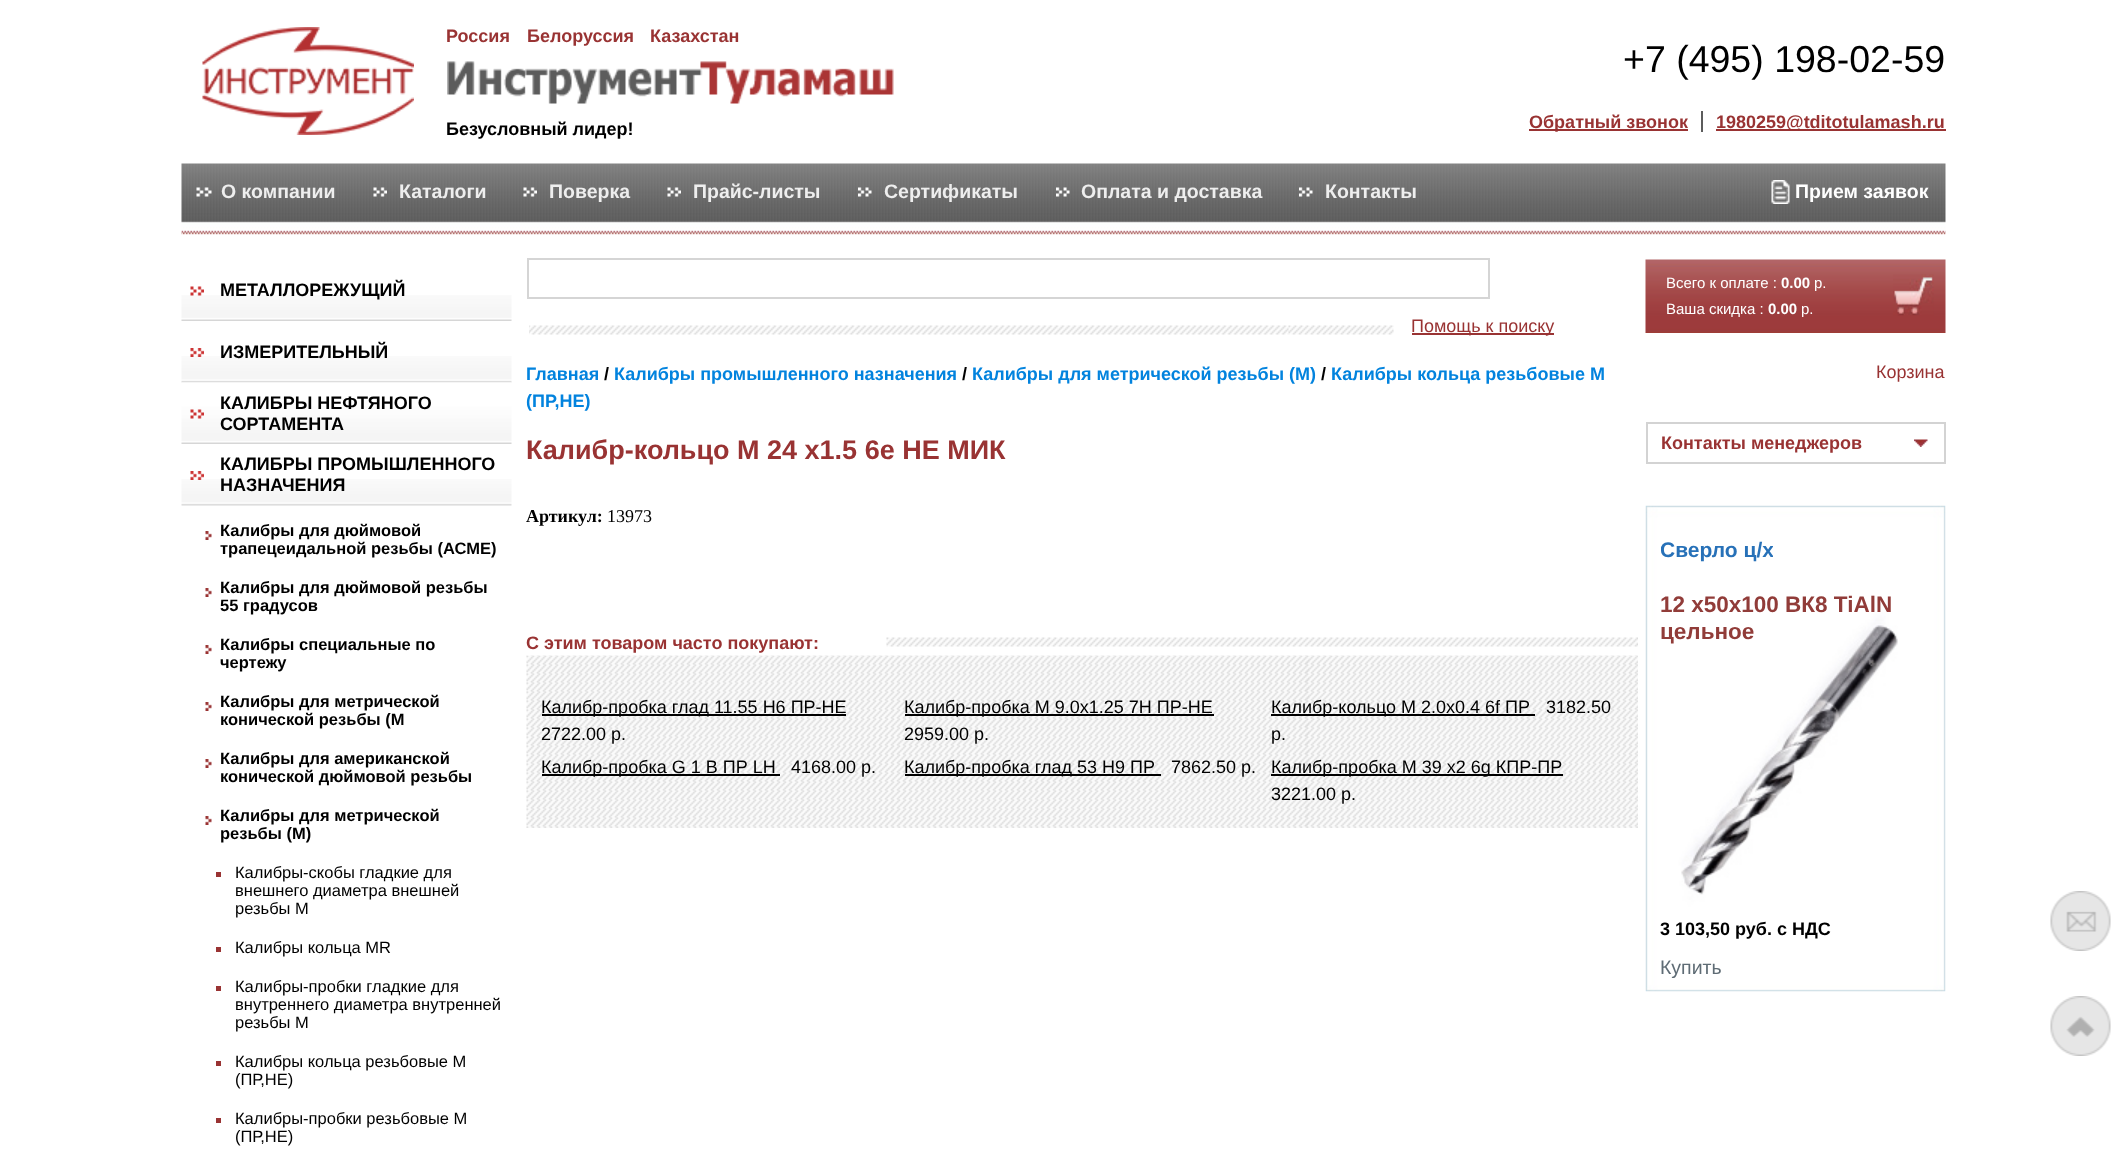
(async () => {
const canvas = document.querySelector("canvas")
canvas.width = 2125
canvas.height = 1160
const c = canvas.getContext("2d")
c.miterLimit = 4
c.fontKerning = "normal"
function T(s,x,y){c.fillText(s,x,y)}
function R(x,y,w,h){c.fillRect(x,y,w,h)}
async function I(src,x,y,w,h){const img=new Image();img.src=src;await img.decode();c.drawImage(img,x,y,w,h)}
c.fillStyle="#fff"
R(0,0,2125,1160)
await I("1.png",202,27,212,108)
c.font="bold 18px Liberation Sans"
c.fillStyle="#933"
T("Россия",446,42)
T("Белоруссия",527,42)
T("Казахстан",650,42)
await I("2.png",447,61,447,43)
c.fillStyle="#000"
T("Безусловный лидер!",446,135)
c.font="37.5px Liberation Sans"
T("+7 (495) 198-02-59",1623,72)
c.fillStyle="#5c5c5c"
R(1701,111,2,21)
c.fillStyle="#933"
R(1529,129,159,2)
c.font="bold 18px Liberation Sans"
T("Обратный звонок",1529,128)
R(1716,129,230,2)
T("1980259@tditotulamash.ru",1716,128)
await I("3.png",181,163,1765,72)
await I("4.png",196,187,16,10)
c.font="bold 19.5px Liberation Sans"
c.fillStyle="#eee"
T("О компании",221,198)
await I("5.png",373,187,14,10)
T("Каталоги",399,198)
await I("5.png",523,187,14,10)
T("Поверка",549,198)
await I("5.png",667,187,14,10)
T("Прайс-листы",693,198)
await I("6.png",858,187,14,10)
T("Сертификаты",884,198)
await I("7.png",1056,187,14,10)
T("Оплата и доставка",1081,198)
await I("8.png",1299,187,14,10)
T("Контакты",1325,198)
await I("9.png",1771,180,19,24)
c.fillStyle="#fff"
T("Прием заявок",1795,198)
await I("10.png",181,295,331,26)
await I("11.png",190,286,14,10)
c.font="bold 18px Liberation Sans"
c.fillStyle="#000"
T("МЕТАЛЛОРЕЖУЩИЙ",220,296)
await I("12.png",181,356,331,27)
await I("13.png",190,348,14,9)
T("ИЗМЕРИТЕЛЬНЫЙ",220,358)
await I("14.png",181,382,331,62)
await I("15.png",190,409,14,10)
T("КАЛИБРЫ НЕФТЯНОГО",220,409)
T("СОРТАМЕНТА",220,430)
await I("12.png",181,479,331,27)
await I("13.png",190,471,14,9)
T("КАЛИБРЫ ПРОМЫШЛЕННОГО",220,470)
T("НАЗНАЧЕНИЯ",220,491)
await I("16.png",205,531,7,9)
c.font="bold 16.5px Liberation Sans"
T("Калибры для дюймовой",220,536)
T("трапецеидальной резьбы (АСМЕ)",220,554)
await I("16.png",205,588,7,9)
T("Калибры для дюймовой резьбы",220,593)
T("55 градусов",220,611)
await I("16.png",205,645,7,9)
T("Калибры специальные по",220,650)
T("чертежу",220,668)
await I("16.png",205,702,7,9)
T("Калибры для метрической",220,707)
T("конической резьбы (М",220,725)
await I("16.png",205,759,7,9)
T("Калибры для американской",220,764)
T("конической дюймовой резьбы",220,782)
await I("16.png",205,816,7,9)
T("Калибры для метрической",220,821)
T("резьбы (М)",220,839)
c.fillStyle="#933"
R(216,872,5,5)
c.font="16.5px Liberation Sans"
c.fillStyle="#000"
T("Калибры-скобы гладкие для",235,878)
T("внешнего диаметра внешней",235,896)
T("резьбы М",235,914)
c.fillStyle="#933"
R(216,947,5,5)
c.fillStyle="#000"
T("Калибры кольца MR",235,953)
c.fillStyle="#933"
R(216,986,5,5)
c.fillStyle="#000"
T("Калибры-пробки гладкие для",235,992)
T("внутреннего диаметра внутренней",235,1010)
T("резьбы М",235,1028)
c.fillStyle="#933"
R(216,1061,5,5)
c.fillStyle="#000"
T("Калибры кольца резьбовые М",235,1067)
T("(ПР,НЕ)",235,1085)
c.fillStyle="#933"
R(216,1118,5,5)
c.fillStyle="#000"
T("Калибры-пробки резьбовые М",235,1124)
T("(ПР,НЕ)",235,1142)
c.strokeStyle="#d5d5d5"
c.lineWidth=2
c.strokeRect(528,259,961,39)
await I("17.png",529,325,760,10)
await I("18.png",1288,325,106,10)
c.fillStyle="#933"
R(1412,333,142,2)
c.font="18px Liberation Sans"
T("Помощь к поиску",1411,332)
await I("19.png",1645,259,301,74)
c.font="15px Liberation Sans"
c.fillStyle="#fff"
T("Всего к оплате :",1666,288)
c.font="bold 15px Liberation Sans"
T("0.00",1781,288)
c.font="15px Liberation Sans"
T("р.",1814,288)
T("Ваша скидка :",1666,314)
c.font="bold 15px Liberation Sans"
T("0.00",1768,314)
c.font="15px Liberation Sans"
T("р.",1801,314)
await I("20.png",1893,274,41,42)
c.font="18px Liberation Sans"
c.fillStyle="#933"
T("Корзина",1876,378)
c.font="bold 18px Liberation Sans"
c.fillStyle="#0283de"
T("Главная",526,380)
c.fillStyle="#000"
T("/",604,380)
c.fillStyle="#0283de"
T("Калибры промышленного назначения",614,380)
c.fillStyle="#000"
T("/",962,380)
c.fillStyle="#0283de"
T("Калибры для метрической резьбы (М)",972,380)
c.fillStyle="#000"
T("/",1321,380)
c.fillStyle="#0283de"
T("Калибры кольца резьбовые М",1331,380)
T("(ПР,НЕ)",526,407)
c.font="bold 27px Liberation Sans"
c.fillStyle="#933"
T("Калибр-кольцо М 24 х1.5 6e НЕ МИК",526,459)
c.font="bold 18px Liberation Serif"
c.fillStyle="#000"
T("Артикул:",526,522)
c.font="18px Liberation Serif"
T("13973",607,522)
c.font="bold 18px Liberation Sans"
c.fillStyle="#933"
T("С этим товаром часто покупают:",526,649)
await I("21.png",886,637,752,10)
await I("22.png",526,655,1112,173)
c.fillStyle="#000"
R(542,714,304,2)
c.font="18px Liberation Sans"
T("Калибр-пробка глад 11.55 Н6 ПР-НЕ",541,713)
T("2722.00 р.",541,740)
R(905,714,309,2)
T("Калибр-пробка М 9.0х1.25 7Н ПР-НЕ",904,713)
T("2959.00 р.",904,740)
R(1271,714,264,2)
T("Калибр-кольцо М 2.0х0.4 6f ПР",1271,713)
T("3182.50",1546,713)
T("р.",1271,740)
R(542,774,238,2)
T("Калибр-пробка G 1 В ПР LH",541,773)
T("4168.00 р.",791,773)
R(905,774,256,2)
T("Калибр-пробка глад 53 Н9 ПР",904,773)
T("7862.50 р.",1171,773)
R(1271,774,292,2)
T("Калибр-пробка М 39 х2 6g КПР-ПР",1271,773)
T("3221.00 р.",1271,800)
c.strokeStyle="#d3d3d3"
c.strokeRect(1647,423,298,40)
c.font="bold 18px Liberation Sans"
c.fillStyle="#933"
T("Контакты менеджеров",1661,449)
await I("23.png",1914,439,14,8)
await I("24.png",1645,505,301,487)
c.save()
c.beginPath()
c.rect(1661,537,112,51)
c.clip()
c.font="bold 21px Liberation Sans"
c.fillStyle="#2771b8"
T("Сверло ц/х",1660,557)
c.restore()
c.font="bold 22.5px Liberation Sans"
c.fillStyle="#913c39"
T("12 х50х100 ВК8 TiAlN",1660,612)
T("цельное",1660,639)
c.font="bold 18px Liberation Sans"
c.fillStyle="#000"
T("3 103,50 руб. с НДС",1660,935)
c.font="19.5px Liberation Sans"
c.fillStyle="#5f6c75"
T("Купить",1660,974)
await I("25.png",2050,891,61,60)
await I("26.png",2050,996,61,60)
})()
